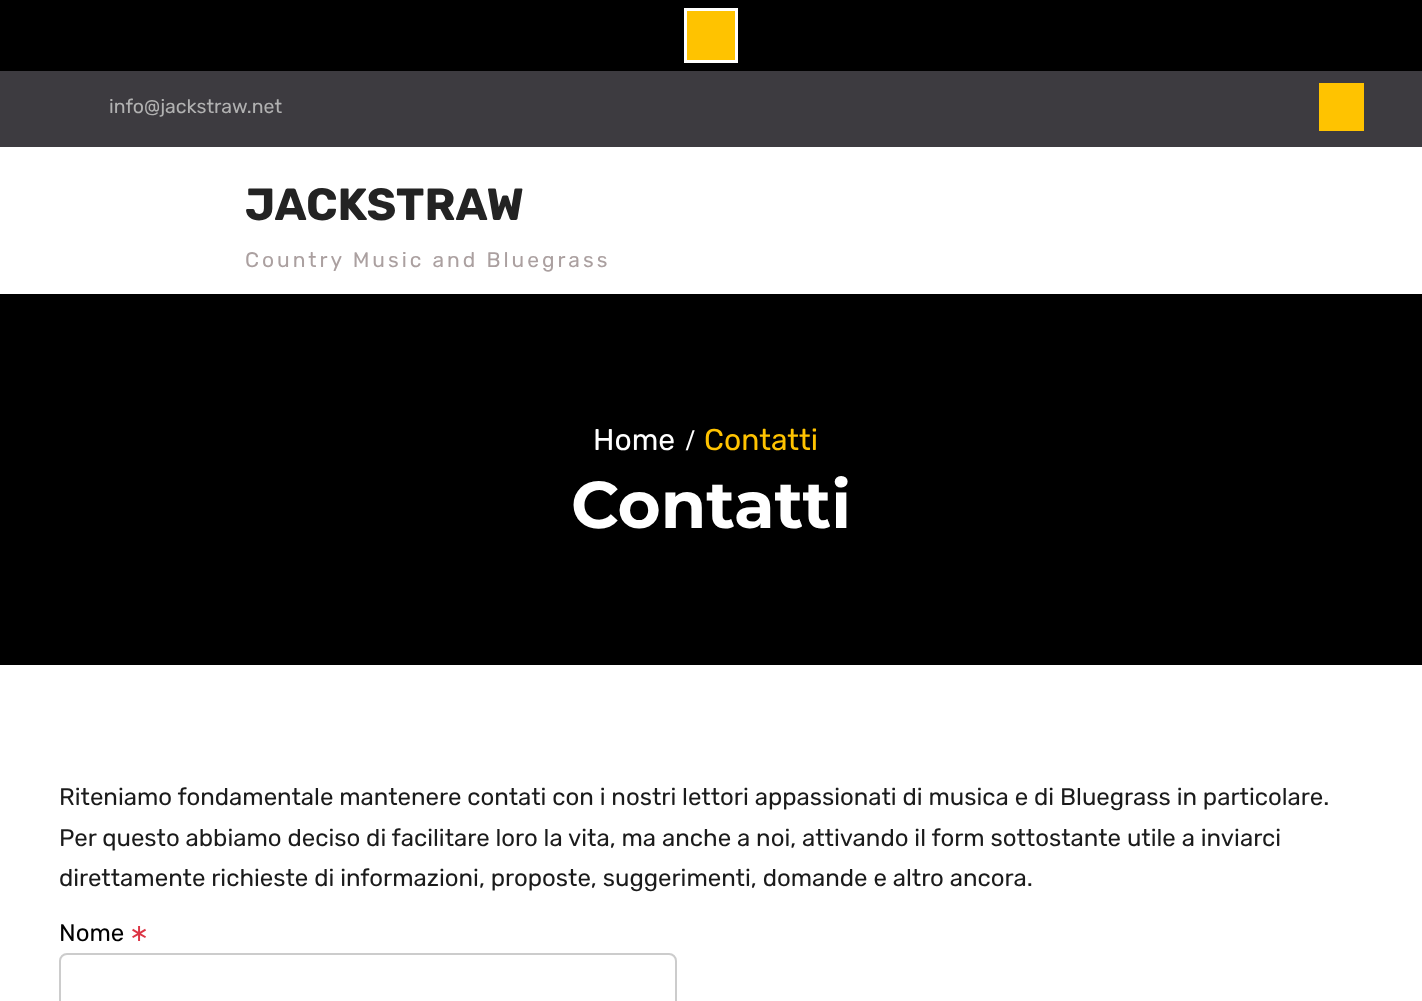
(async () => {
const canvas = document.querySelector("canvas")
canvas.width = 1422
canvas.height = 1001
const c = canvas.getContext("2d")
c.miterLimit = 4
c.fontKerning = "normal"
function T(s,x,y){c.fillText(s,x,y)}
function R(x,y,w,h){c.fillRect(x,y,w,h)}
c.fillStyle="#fff"
R(0,0,1422,1001)
c.fillStyle="#000"
R(0,0,1422,71)
c.fillStyle="#ffc300"
c.beginPath()
c.rect(685.5,9.5,51,52)
c.fill()
c.strokeStyle="#fffffe"
c.lineWidth=3
c.stroke()
c.fillStyle="#3d3b40"
R(0,71,1422,76)
c.font="19.5px Rubik"
c.fillStyle="#b1b1b1"
T("info@jackstraw.net",109,113)
c.fillStyle="#ffc300"
R(1319,83,45,48)
c.font="bold 45px Rubik"
c.fillStyle="#232323"
T("JACKSTRAW",245,220)
c.letterSpacing="3px"
c.font="21px Rubik"
c.fillStyle="#aba0a0"
T("Country Music and Bluegrass",245,267)
c.fillStyle="#000"
R(0,294,1422,371)
c.letterSpacing="0px"
c.font="30px Rubik"
c.fillStyle="#fff"
T("Home",593,450)
c.font="bold 30px Liberation Serif"
T("/",686,450)
c.font="30px Rubik"
c.fillStyle="#ffc300"
T("Contatti",704,450)
c.font="bold 66px Montserrat"
c.fillStyle="#fff"
T("Contatti",571,528)
c.font="24px Rubik"
c.fillStyle="#1b1b1b"
T("Riteniamo fondamentale mantenere contati con i nostri lettori appassionati di musica e di Bluegrass in particolare.",59,805)
T("Per questo abbiamo deciso di facilitare loro la vita, ma anche a noi, attivando il form sottostante utile a inviarci",59,846)
T("direttamente richieste di informazioni, proposte, suggerimenti, domande e altro ancora.",59,886)
c.fillStyle="#000"
T("Nome",59,941)
c.font="24px DejaVu Sans"
c.fillStyle="#dc3545"
T("∗",129,941)
c.beginPath()
c.roundRect(60,954,616,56,7)
c.strokeStyle="#ccc"
c.lineWidth=2
c.stroke()
})()
